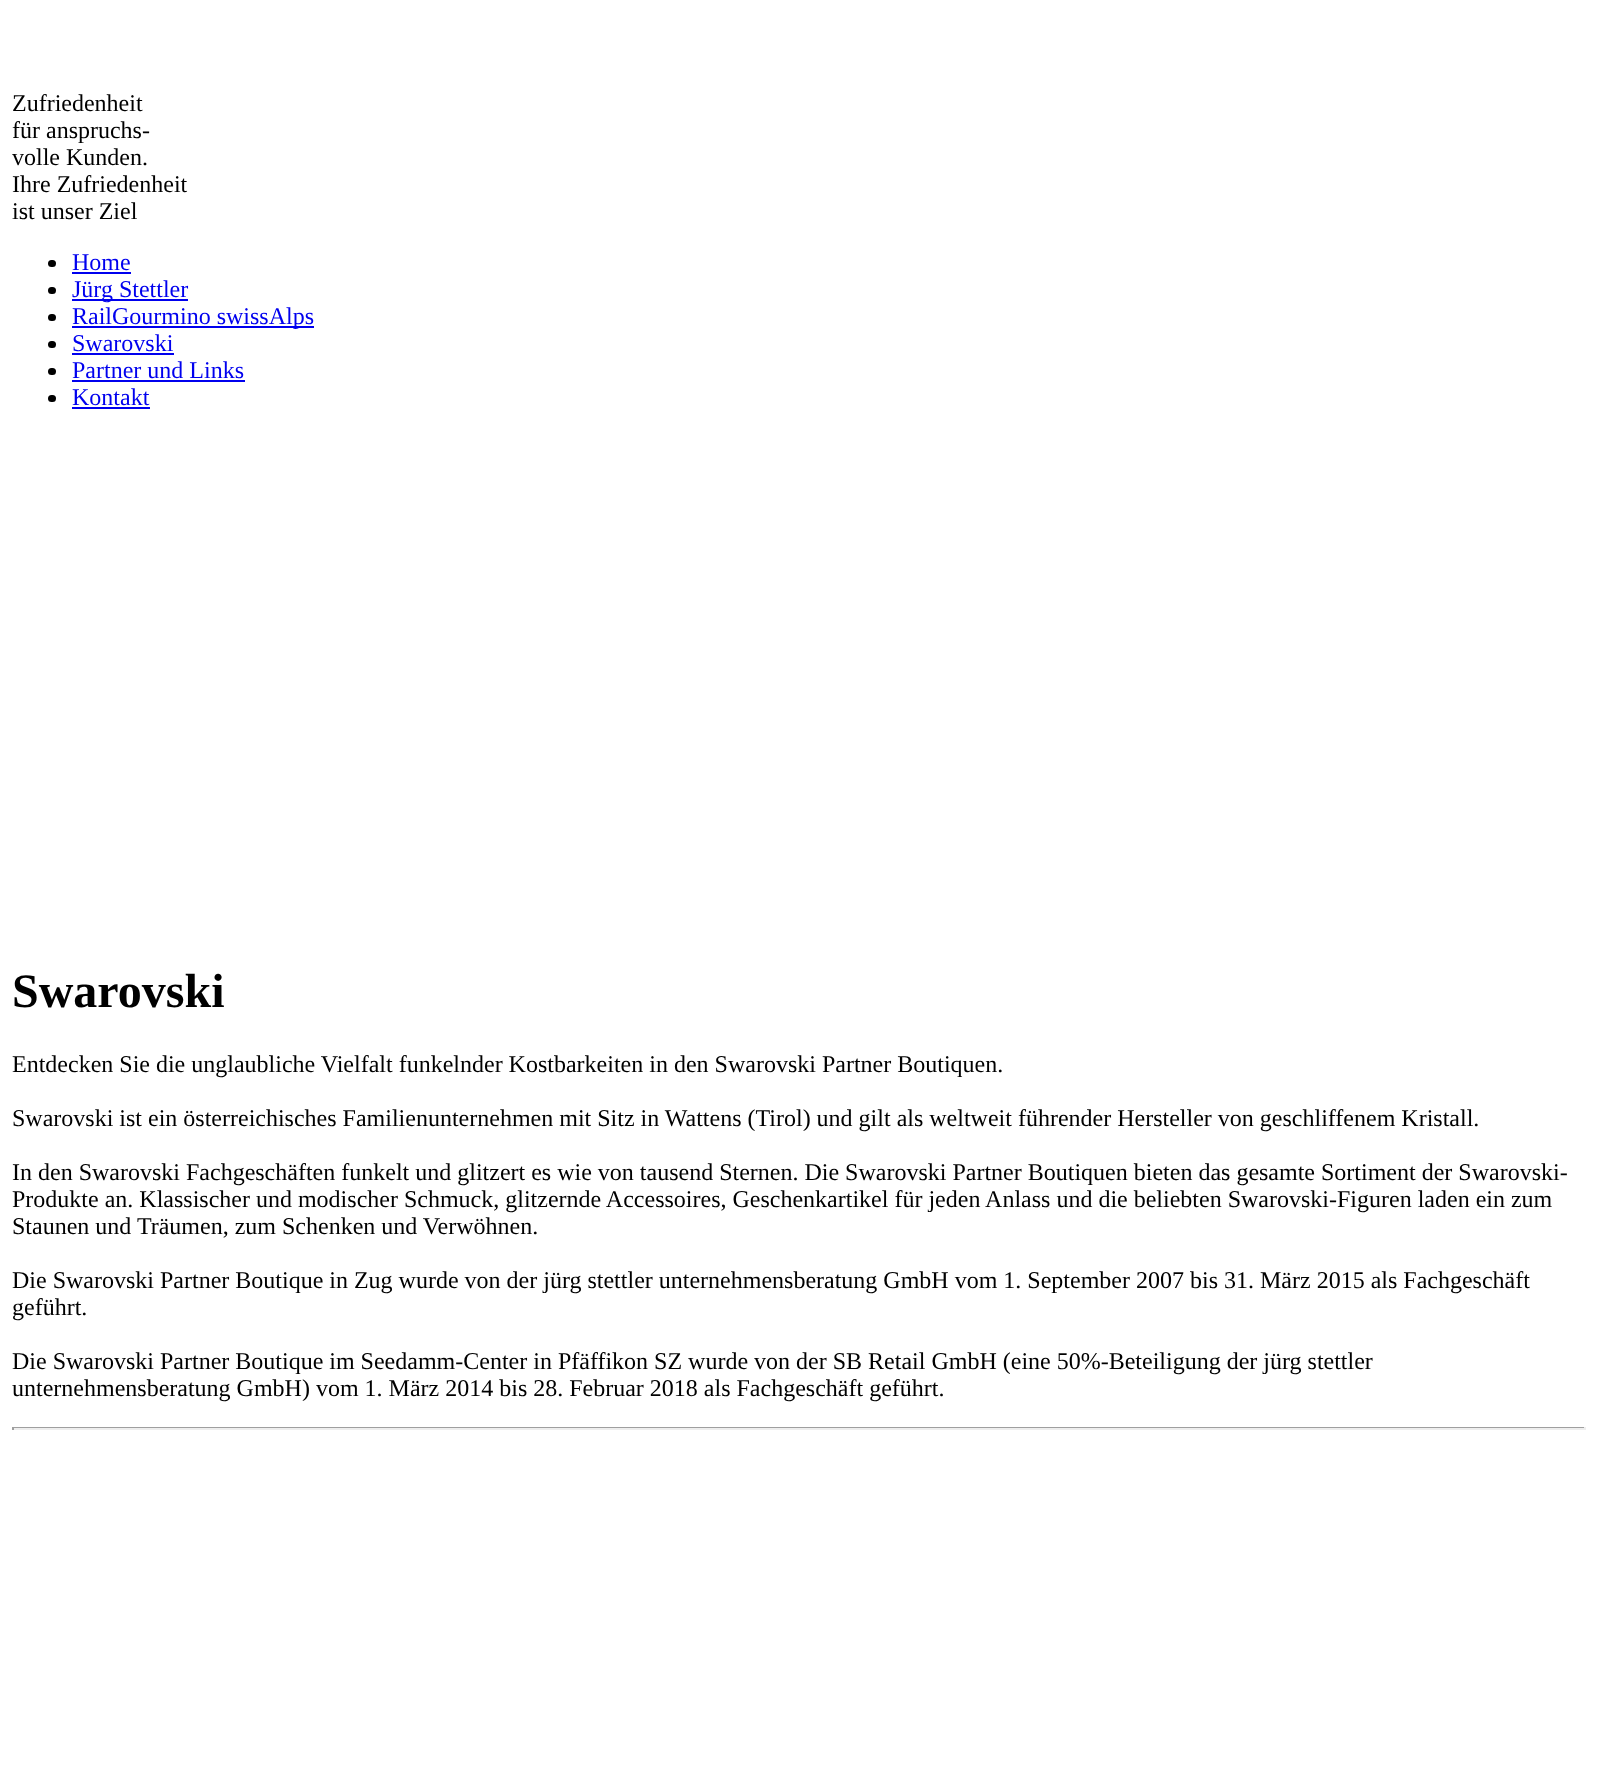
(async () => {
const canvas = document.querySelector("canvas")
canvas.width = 1597
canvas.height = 1787
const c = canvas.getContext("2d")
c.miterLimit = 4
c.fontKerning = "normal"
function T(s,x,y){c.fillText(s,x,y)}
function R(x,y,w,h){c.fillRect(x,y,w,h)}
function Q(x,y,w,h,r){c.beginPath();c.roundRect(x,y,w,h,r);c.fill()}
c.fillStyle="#fff"
R(0,0,1597,1787)
c.font="24px Liberation Serif"
c.fillStyle="#000"
T("Zufriedenheit",12,111)
T("für anspruchs-",12,138)
T("volle Kunden.",12,165)
T("Ihre Zufriedenheit",12,192)
T("ist unser Ziel",12,219)
Q(48,260,8,7,3.5)
c.fillStyle="#00e"
T("Home",72,270)
R(72,272,59,2)
c.fillStyle="#000"
Q(48,287,8,7,3.5)
c.fillStyle="#00e"
R(72,299,116,2)
T("Jürg Stettler",72,297)
c.fillStyle="#000"
Q(48,314,8,7,3.5)
c.fillStyle="#00e"
R(72,326,242,2)
T("RailGourmino swissAlps",72,324)
c.fillStyle="#000"
Q(48,341,8,7,3.5)
c.fillStyle="#00e"
T("Swarovski",72,351)
R(72,353,102,2)
c.fillStyle="#000"
Q(48,368,8,7,3.5)
c.fillStyle="#00e"
T("Partner und Links",72,378)
R(72,380,173,2)
c.fillStyle="#000"
Q(48,395,8,7,3.5)
c.fillStyle="#00e"
T("Kontakt",72,405)
R(72,407,78,2)
c.font="bold 48px Liberation Serif"
c.fillStyle="#000"
T("Swarovski",12,1007)
c.font="24px Liberation Serif"
T("Entdecken Sie die unglaubliche Vielfalt funkelnder Kostbarkeiten in den Swarovski Partner Boutiquen.",12,1072)
T("Swarovski ist ein österreichisches Familienunternehmen mit Sitz in Wattens (Tirol) und gilt als weltweit führender Hersteller von geschliffenem Kristall.",12,1126)
T("In den Swarovski Fachgeschäften funkelt und glitzert es wie von tausend Sternen. Die Swarovski Partner Boutiquen bieten das gesamte Sortiment der Swarovski-",12,1180)
T("Produkte an. Klassischer und modischer Schmuck, glitzernde Accessoires, Geschenkartikel für jeden Anlass und die beliebten Swarovski-Figuren laden ein zum",12,1207)
T("Staunen und Träumen, zum Schenken und Verwöhnen.",12,1234)
T("Die Swarovski Partner Boutique in Zug wurde von der jürg stettler unternehmensberatung GmbH vom 1. September 2007 bis 31. März 2015 als Fachgeschäft",12,1288)
T("geführt.",12,1315)
T("Die Swarovski Partner Boutique im Seedamm-Center in Pfäffikon SZ wurde von der SB Retail GmbH (eine 50%-Beteiligung der jürg stettler",12,1369)
T("unternehmensberatung GmbH) vom 1. März 2014 bis 28. Februar 2018 als Fachgeschäft geführt.",12,1396)
c.fillStyle="#9f9f9f"
R(12,1427,1574,1)
c.fillStyle="#eee"
R(1584,1427,2,3)
R(12,1428,1574,2)
c.fillStyle="#9f9f9f"
R(12,1427,2,3)
})()
